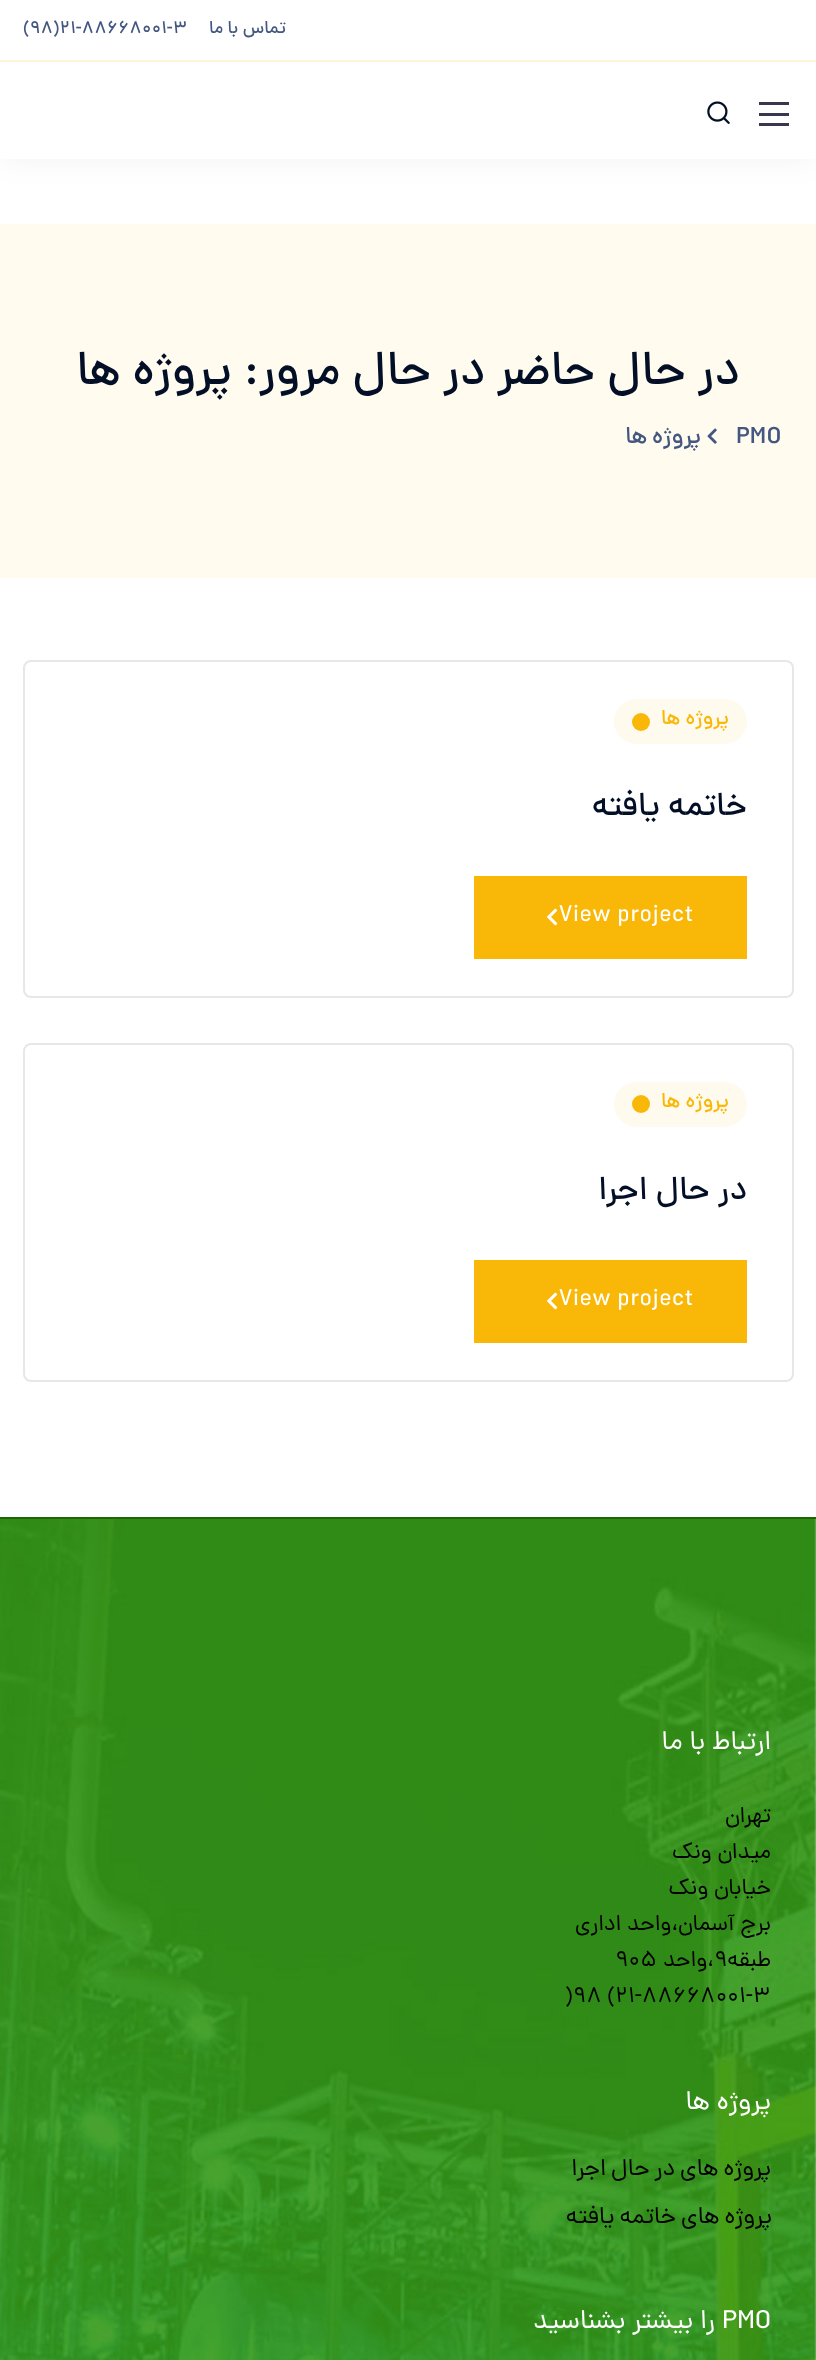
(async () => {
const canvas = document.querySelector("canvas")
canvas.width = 816
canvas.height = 2360
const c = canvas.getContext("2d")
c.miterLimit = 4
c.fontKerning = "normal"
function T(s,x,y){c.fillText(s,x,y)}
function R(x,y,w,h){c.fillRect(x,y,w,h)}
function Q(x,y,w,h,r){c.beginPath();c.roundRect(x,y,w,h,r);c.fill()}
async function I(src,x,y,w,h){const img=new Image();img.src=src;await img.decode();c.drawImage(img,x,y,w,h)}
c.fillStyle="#fff"
R(0,0,816,2360)
c.fillStyle="#0000000d"
c.filter="blur(15px)"
c.beginPath()
c.rect(0,0,816,159)
c.fill()
c.filter="none"
c.fillStyle="#fff"
R(0,0,816,60)
c.fillStyle="#fef4da"
R(0,60,816,2)
c.direction="rtl"
c.font="500 18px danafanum"
c.fillStyle="#445781"
T("تماس با ما",286,33)
c.direction="ltr"
T("(98)21-88668001-3",23,33)
c.fillStyle="#fff"
R(0,62,816,97)
c.fillStyle="#39364e"
R(759,123,30,3)
R(759,102,30,3)
R(759,113,30,3)
await I("1.png",707,101,23,23)
c.fillStyle="#fffbee"
R(0,224,816,354)
c.direction="rtl"
c.font="500 48px danafanum"
c.fillStyle="#030f27"
T("در حال حاضر در حال مرور: پروژه ها",740,384)
c.letterSpacing="0.25px"
c.direction="ltr"
c.font="500 24px danafanum"
c.fillStyle="#445781"
T("PMO",736,443)
await I("2.png",707,428,10,16)
c.wordSpacing="-1.5px"
c.direction="rtl"
T("پروژه ها",701,443)
c.beginPath()
c.roundRect(24,661,769,336,7)
c.strokeStyle="#e7e7e7"
c.lineWidth=2
c.stroke()
c.fillStyle="#fffaee"
Q(614,699,133,45,22.5)
c.letterSpacing="0px"
c.wordSpacing="0px"
c.font="500 21px danafanum"
c.fillStyle="#f9b707"
T("پروژه ها",729,724)
c.beginPath()
c.arc(641,722,9,0,7)
c.fill()
c.font="500 33px danafanum"
c.fillStyle="#030f27"
T("خاتمه یافته",747,815)
c.fillStyle="#f9b707"
R(474,876,273,83)
c.letterSpacing="0.25px"
c.direction="ltr"
c.font="24px danafanum"
c.fillStyle="#fff"
T("View project",559,921)
await I("3.png",547,908,11,18)
c.beginPath()
c.roundRect(24,1044,769,337,7)
c.stroke()
c.fillStyle="#fffaee"
Q(614,1082,133,45,22.5)
c.letterSpacing="0px"
c.direction="rtl"
c.font="500 21px danafanum"
c.fillStyle="#f9b707"
T("پروژه ها",729,1107)
c.beginPath()
c.arc(641,1104,9,0,7)
c.fill()
c.font="500 33px danafanum"
c.fillStyle="#030f27"
T("در حال اجرا",747,1199)
c.fillStyle="#f9b707"
R(474,1260,273,83)
c.letterSpacing="0.25px"
c.direction="ltr"
c.font="24px danafanum"
c.fillStyle="#fff"
T("View project",559,1305)
await I("3.png",547,1292,11,18)
await I("4.png",0,1519,816,841)
c.fillStyle="#1f6601"
R(0,1517,816,2)
c.letterSpacing="0px"
c.direction="rtl"
c.font="27px danafanum"
c.fillStyle="#fff"
T("ارتباط با ما",771,1749)
c.font="22.5px danafanum"
c.fillStyle="#000"
T("تهران",771,1822)
T("میدان ونک",771,1858)
T("خیابان ونک",771,1894)
T("برج آسمان،واحد اداری",771,1930)
T("طبقه",771,1966)
c.direction="ltr"
T("9",714,1966)
c.direction="rtl"
T("،واحد",714,1966)
c.direction="ltr"
T("905",615,1966)
T(")98 (21-88668001-3",565,2002)
c.direction="rtl"
c.font="27px danafanum"
c.fillStyle="#fff"
T("پروژه ها",771,2109)
c.letterSpacing="0.25px"
c.wordSpacing="-1.5px"
c.font="24px danafanum"
c.fillStyle="#000"
T("پروژه های در حال اجرا",771,2175)
T("پروژه های خاتمه یافته",772,2223)
c.letterSpacing="0px"
c.wordSpacing="0px"
c.direction="ltr"
c.font="27px danafanum"
c.fillStyle="#fff"
T("PMO",722,2328)
c.direction="rtl"
T("را بیشتر بشناسید",715,2328)
})()
